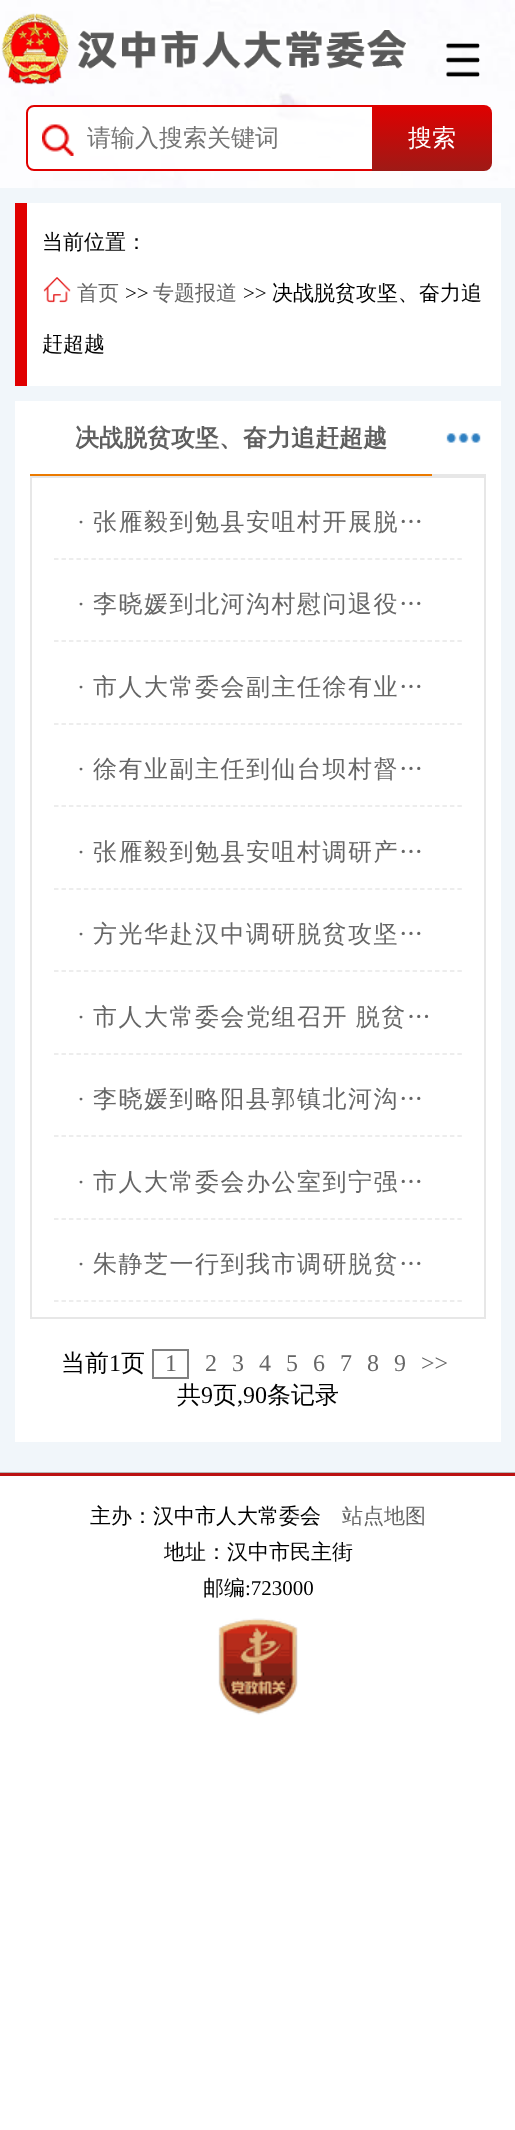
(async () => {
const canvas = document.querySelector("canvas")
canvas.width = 515
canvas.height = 2130
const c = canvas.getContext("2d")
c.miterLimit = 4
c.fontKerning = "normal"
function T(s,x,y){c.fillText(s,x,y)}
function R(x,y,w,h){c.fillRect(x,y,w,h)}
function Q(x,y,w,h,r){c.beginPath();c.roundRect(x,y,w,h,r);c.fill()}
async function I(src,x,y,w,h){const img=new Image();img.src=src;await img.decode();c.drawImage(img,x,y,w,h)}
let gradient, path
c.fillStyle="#fff"
R(0,0,515,2130)
await I("1.png",0,0,515,188)
await I("2.png",446,43,34,34)
await I("3.png",1,13,407,72)
c.fillStyle="#ffffffcc"
Q(26,105,432,66,8)
await I("4.png",42,124,32,32)
c.beginPath()
c.roundRect(27,106,430,64,7)
c.strokeStyle="#e00000"
c.lineWidth=2
c.stroke()
c.font="500 24px WenQuanYi Zen Hei"
c.fillStyle="#757575"
T("请输入搜索关键词",87,146)
gradient = c.createLinearGradient(432,105,432,171)
gradient.addColorStop(0,"#e00000")
gradient.addColorStop(1,"#9e1a16")
c.fillStyle = gradient
c.beginPath()
c.roundRect(372,105,120,66,[0,8,8,0])
c.fill()
c.fillStyle="#fff"
T("搜索",408,146)
c.fillStyle="#f1f6fa"
R(0,188,515,1284)
c.fillStyle="#b6b6b6"
R(0,1472,515,1)
c.fillStyle="#fff"
R(27,203,474,183)
c.fillStyle="#e00000"
R(15,203,12,183)
c.font="500 21px WenQuanYi Zen Hei"
c.fillStyle="#000"
T("当前位置：",42,249)
await I("5.png",43,277,28,26)
c.fillStyle="#666"
T("首页",77,300)
c.font="21px Liberation Serif"
c.fillStyle="#000"
T(">>",125,300)
c.font="500 21px WenQuanYi Zen Hei"
c.fillStyle="#666"
T("专题报道",153,300)
c.font="21px Liberation Serif"
c.fillStyle="#000"
T(">>",243,300)
c.font="500 21px WenQuanYi Zen Hei"
T("决战脱贫攻坚、奋力追",272,300)
T("赶超越",42,351)
c.fillStyle="#fff"
R(15,401,486,1041)
c.fillStyle="#e7e7e7"
R(432,474,54,2)
c.fillStyle="#eb7a00"
R(30,474,402,2)
c.font="bold 24px WenQuanYi Zen Hei"
c.fillStyle="#5f5f5f"
T("决战脱贫攻坚、奋力追赶超越",75,446)
await I("6.png",446,433,35,10)
c.strokeStyle="#e7e7e7"
c.strokeRect(31,477,454,841)
path = new Path2D("M54 559h408")
c.strokeStyle="#e8e8e8"
c.lineWidth=1.5
c.setLineDash([4.5,2.97])
c.stroke(path)
c.letterSpacing="1.5px"
c.font="24px Liberation Serif"
c.fillStyle="#666"
T("·",77,530)
c.font="500 24px WenQuanYi Zen Hei"
T("张雁毅到勉县安咀村开展脱…",93,530)
path = new Path2D("M54 641h408")
c.stroke(path)
c.font="24px Liberation Serif"
T("·",77,612)
c.font="500 24px WenQuanYi Zen Hei"
T("李晓媛到北河沟村慰问退役…",93,612)
path = new Path2D("M54 724h408")
c.stroke(path)
c.font="24px Liberation Serif"
T("·",77,695)
c.font="500 24px WenQuanYi Zen Hei"
T("市人大常委会副主任徐有业…",93,695)
path = new Path2D("M54 806h408")
c.stroke(path)
c.font="24px Liberation Serif"
T("·",77,777)
c.font="500 24px WenQuanYi Zen Hei"
T("徐有业副主任到仙台坝村督…",93,777)
path = new Path2D("M54 889h408")
c.stroke(path)
c.font="24px Liberation Serif"
T("·",77,860)
c.font="500 24px WenQuanYi Zen Hei"
T("张雁毅到勉县安咀村调研产…",93,860)
path = new Path2D("M54 971h408")
c.stroke(path)
c.font="24px Liberation Serif"
T("·",77,942)
c.font="500 24px WenQuanYi Zen Hei"
T("方光华赴汉中调研脱贫攻坚…",93,942)
path = new Path2D("M54 1054h408")
c.stroke(path)
c.font="24px Liberation Serif"
T("·",77,1025)
c.wordSpacing="-1px"
c.font="500 24px WenQuanYi Zen Hei"
T("市人大常委会党组召开 脱贫…",93,1025)
path = new Path2D("M54 1136h408")
c.stroke(path)
c.wordSpacing="0px"
c.font="24px Liberation Serif"
T("·",77,1107)
c.font="500 24px WenQuanYi Zen Hei"
T("李晓媛到略阳县郭镇北河沟…",93,1107)
path = new Path2D("M54 1219h408")
c.stroke(path)
c.font="24px Liberation Serif"
T("·",77,1190)
c.font="500 24px WenQuanYi Zen Hei"
T("市人大常委会办公室到宁强…",93,1190)
path = new Path2D("M54 1301h408")
c.stroke(path)
c.font="24px Liberation Serif"
T("·",77,1272)
c.font="500 24px WenQuanYi Zen Hei"
T("朱静芝一行到我市调研脱贫…",93,1272)
c.letterSpacing="0px"
c.fillStyle="#000"
T("当前",61,1371)
c.font="24px Liberation Serif"
T("1",109,1371)
c.font="500 24px WenQuanYi Zen Hei"
T("页",121,1371)
c.strokeStyle="#808080"
c.lineWidth=2
c.setLineDash([])
c.strokeRect(153,1350,35,28)
c.font="24px Liberation Serif"
c.fillStyle="#666"
T("1",165,1371)
T("2",205,1371)
T("3",232,1371)
T("4",259,1371)
T("5",286,1371)
T("6",313,1371)
T("7",340,1371)
T("8",367,1371)
T("9",394,1371)
T(">>",421,1371)
c.font="500 24px WenQuanYi Zen Hei"
c.fillStyle="#000"
T("共",177,1403)
c.font="24px Liberation Serif"
T("9",201,1403)
c.font="500 24px WenQuanYi Zen Hei"
T("页",213,1403)
c.font="24px Liberation Serif"
T(",90",237,1403)
c.font="500 24px WenQuanYi Zen Hei"
T("条记录",267,1403)
c.fillStyle="#b11"
R(0,1473,515,3)
c.font="500 21px WenQuanYi Zen Hei"
c.fillStyle="#000"
T("主办：汉中市人大常委会",90,1523)
c.fillStyle="#666"
T("站点地图",342,1523)
c.fillStyle="#000"
T("地址：汉中市民主街",164,1559)
T("邮编",203,1595)
c.font="21px Liberation Serif"
T(":723000",245,1595)
await I("7.png",218,1618,80,97)
})()
